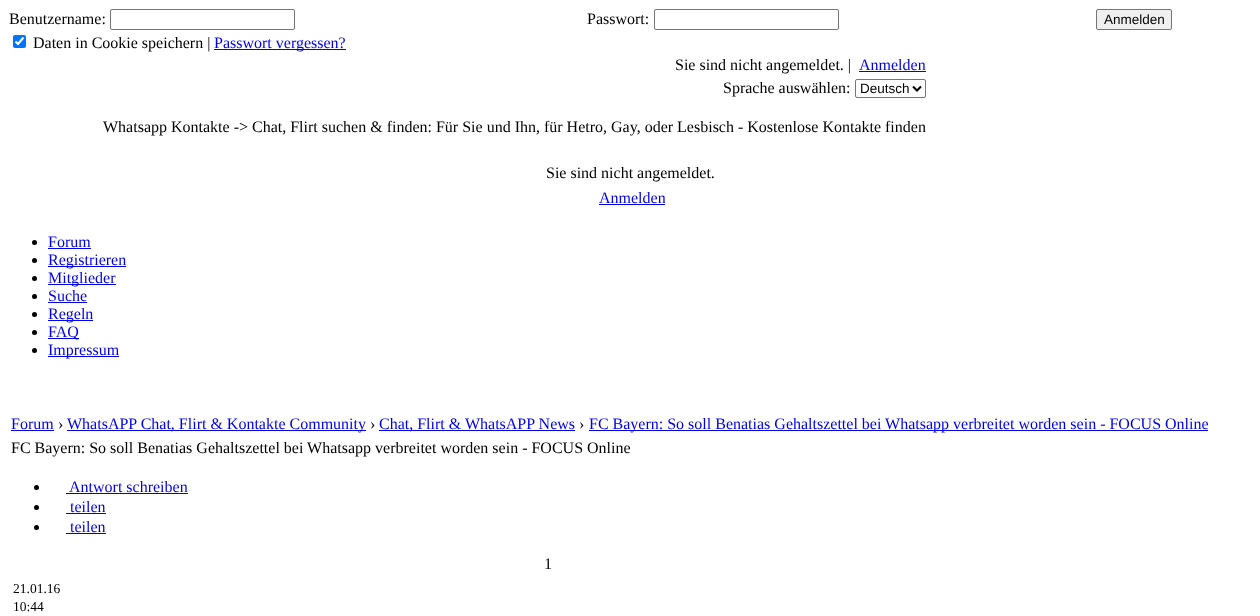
(async () => {
const canvas = document.querySelector("canvas")
canvas.width = 1260
canvas.height = 616
const c = canvas.getContext("2d")
c.miterLimit = 4
c.fontKerning = "normal"
function T(s,x,y){c.fillText(s,x,y)}
function R(x,y,w,h){c.fillRect(x,y,w,h)}
function Q(x,y,w,h,r){c.beginPath();c.roundRect(x,y,w,h,r);c.fill()}
let path
c.fillStyle="#fff"
R(0,0,1260,616)
c.font="16px Liberation Serif"
c.fillStyle="#000"
T("Benutzername:",9,24)
c.beginPath()
c.roundRect(110.5,9.5,184,20,1.5)
c.strokeStyle="#767676"
c.stroke()
T("Passwort:",587,24)
c.beginPath()
c.roundRect(654.5,9.5,184,20,1.5)
c.stroke()
c.fillStyle="#efefef"
c.beginPath()
c.roundRect(1096.5,9.5,75,20,1.5)
c.fill()
c.stroke()
c.font="13.5px Liberation Sans"
c.fillStyle="#000"
T("Anmelden",1104,24)
c.fillStyle="#0075ff"
Q(13,35,13,13,2)
path = new Path2D("M15.5 41.5l2.5 2.5l5.5-6.5")
c.strokeStyle="#fff"
c.lineWidth=2.1
c.stroke(path)
c.font="16px Liberation Serif"
c.fillStyle="#000"
T("Daten in Cookie speichern |",33,48)
c.fillStyle="#00e"
R(214,49,132,1)
T("Passwort vergessen?",214,48)
c.fillStyle="#000"
T("Sie sind nicht angemeldet. |",675,70)
c.fillStyle="#00e"
T("Anmelden",859,70)
R(859,71,67,1)
c.fillStyle="#000"
T("Sprache auswählen:",723,93)
c.beginPath()
c.roundRect(855.5,79.5,70,18,1.5)
c.strokeStyle="#767676"
c.lineWidth=1
c.stroke()
path = new Path2D("M913 86.5l4 4l4-4")
c.strokeStyle="#000"
c.lineWidth=2
c.stroke(path)
c.font="13.5px Liberation Sans"
T("Deutsch",860,93)
c.font="16px Liberation Serif"
T("Whatsapp Kontakte -> Chat, Flirt suchen & finden: Für Sie und Ihn, für Hetro, Gay, oder Lesbisch - Kostenlose Kontakte finden",103,132)
T("Sie sind nicht angemeldet.",546,178)
c.fillStyle="#00e"
T("Anmelden",599,203)
R(599,204,66,1)
c.fillStyle="#000"
c.beginPath()
c.arc(34.5,242.5,2.5,0,7)
c.fill()
c.fillStyle="#00e"
T("Forum",48,247)
R(48,248,43,1)
c.fillStyle="#000"
c.beginPath()
c.arc(34.5,260.5,2.5,0,7)
c.fill()
c.fillStyle="#00e"
R(48,266,78,1)
T("Registrieren",48,265)
c.fillStyle="#000"
c.beginPath()
c.arc(34.5,278.5,2.5,0,7)
c.fill()
c.fillStyle="#00e"
R(48,284,68,1)
T("Mitglieder",48,283)
c.fillStyle="#000"
c.beginPath()
c.arc(34.5,296.5,2.5,0,7)
c.fill()
c.fillStyle="#00e"
T("Suche",48,301)
R(48,302,39,1)
c.fillStyle="#000"
c.beginPath()
c.arc(34.5,314.5,2.5,0,7)
c.fill()
c.fillStyle="#00e"
R(48,320,45,1)
T("Regeln",48,319)
c.fillStyle="#000"
c.beginPath()
c.arc(34.5,332.5,2.5,0,7)
c.fill()
c.fillStyle="#00e"
R(48,338,31,1)
T("FAQ",48,337)
c.fillStyle="#000"
c.beginPath()
c.arc(34.5,350.5,2.5,0,7)
c.fill()
c.fillStyle="#00e"
R(48,356,71,1)
T("Impressum",48,355)
T("Forum",11,429)
R(11,430,43,1)
c.fillStyle="#000"
T("›",58,429)
c.fillStyle="#00e"
R(67,430,299,1)
T("WhatsAPP Chat, Flirt & Kontakte Community",67,429)
c.fillStyle="#000"
T("›",370,429)
c.fillStyle="#00e"
R(379,430,196,1)
T("Chat, Flirt & WhatsAPP News",379,429)
c.fillStyle="#000"
T("›",579,429)
c.fillStyle="#00e"
R(589,430,619,1)
T("FC Bayern: So soll Benatias Gehaltszettel bei Whatsapp verbreitet worden sein - FOCUS Online",589,429)
c.fillStyle="#000"
T("FC Bayern: So soll Benatias Gehaltszettel bei Whatsapp verbreitet worden sein - FOCUS Online",11,453)
c.beginPath()
c.arc(36.5,487.5,2.5,0,7)
c.fill()
c.fillStyle="#00e"
T("Antwort schreiben",69,492)
R(66,493,122,1)
c.fillStyle="#000"
c.beginPath()
c.arc(36.5,507.5,2.5,0,7)
c.fill()
c.fillStyle="#00e"
T("teilen",70,512)
R(66,513,40,1)
c.fillStyle="#000"
c.beginPath()
c.arc(36.5,527.5,2.5,0,7)
c.fill()
c.fillStyle="#00e"
T("teilen",70,532)
R(66,533,40,1)
c.fillStyle="#000"
T("1",544,569)
c.font="13.5px Liberation Serif"
T("21.01.16",13,593)
T("10:44",13,611)
})()
